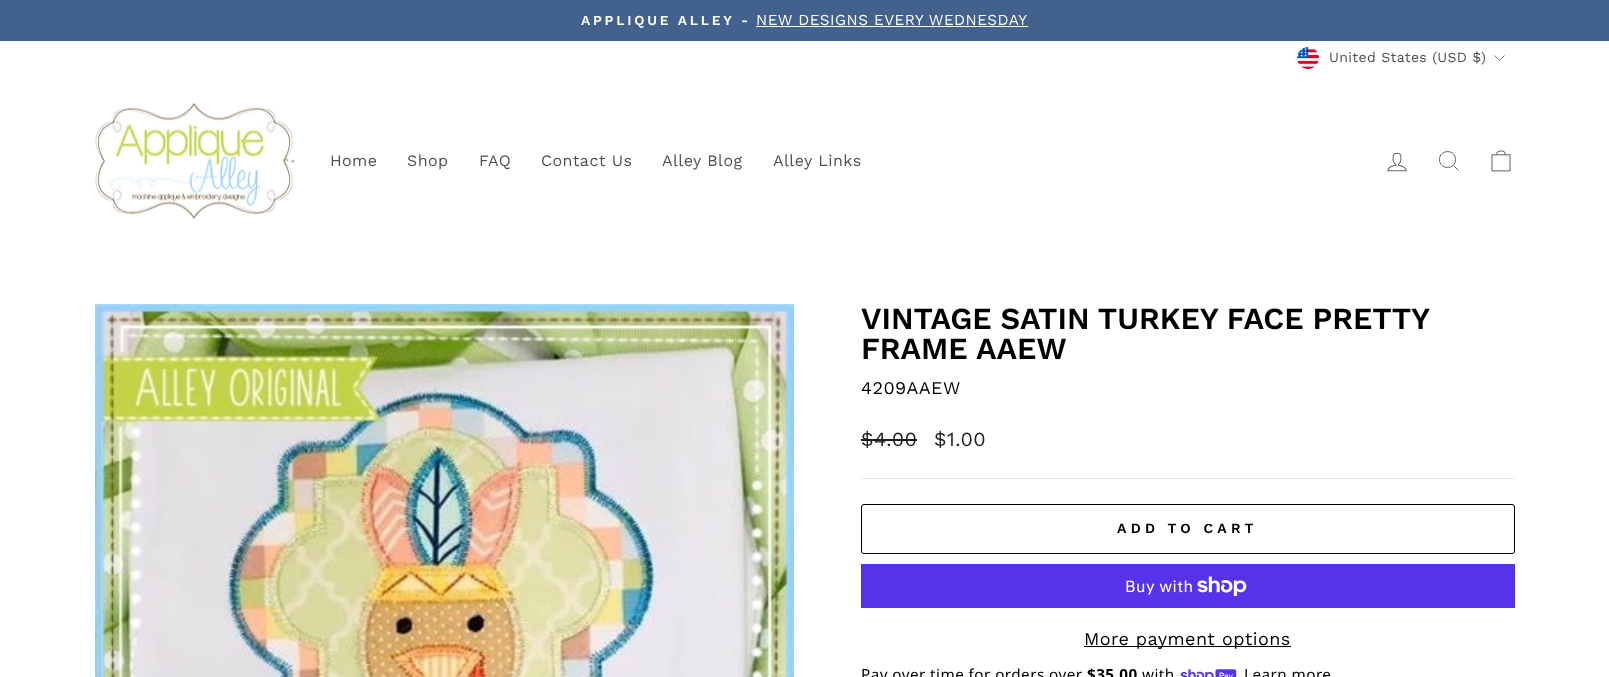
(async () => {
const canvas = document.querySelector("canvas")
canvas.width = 1609
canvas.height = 677
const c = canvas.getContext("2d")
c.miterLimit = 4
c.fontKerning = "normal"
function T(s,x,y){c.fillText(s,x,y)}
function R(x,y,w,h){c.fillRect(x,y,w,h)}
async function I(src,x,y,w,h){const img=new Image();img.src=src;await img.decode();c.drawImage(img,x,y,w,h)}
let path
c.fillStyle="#fff"
R(0,0,1609,677)
c.fillStyle="#42628d"
R(0,0,1609,41)
c.letterSpacing="2.75px"
c.font="600 13.75px Work Sans"
c.fillStyle="#fff"
T("APPLIQUE ALLEY -",581,25)
c.letterSpacing="0.45px"
c.font="15.25px Work Sans"
T("NEW DESIGNS EVERY WEDNESDAY",756,25)
R(756,26,272,1)
await I("1.png",1297,47,22,22)
c.letterSpacing="0.35px"
c.font="14px Work Sans"
c.fillStyle="#505050"
T("United States (USD $)",1329,62)
path = new Path2D("M1494.5 55.5l5 5l5-5")
c.strokeStyle="#505050"
c.lineWidth=0.8
c.stroke(path)
await I("2.png",95,103,200,116)
c.letterSpacing="0.45px"
c.font="16px Work Sans"
T("Home",330,166)
T("Shop",407,166)
T("FAQ",479,166)
T("Contact Us",541,166)
T("Alley Blog",662,166)
T("Alley Links",773,166)
await I("3.png",1387,152,20,20)
path = new Path2D("M1455.5 159.5c0 10.5-16 10.5-16 0c0-10.5 16-10.5 16 0zm3 11l-5-5")
c.lineWidth=0.9
c.stroke(path)
await I("4.png",1491,150,20,22)
await I("5.png",95,304,699,373)
c.letterSpacing="0px"
c.wordSpacing="-0.5px"
c.font="600 30.6px Work Sans"
c.fillStyle="#000"
T("VINTAGE SATIN TURKEY FACE PRETTY",861,329)
c.wordSpacing="0px"
T("FRAME",861,359)
T("AAEW",976,359)
c.letterSpacing="0.45px"
c.font="18px Work Sans"
T("4209AAEW",861,394)
c.font="20px Work Sans"
c.fillStyle="#1c1d1d"
T("$4.00",861,446)
R(861,439,56,2)
T("$1.00",934,446)
c.fillStyle="#e8e8e1"
R(861,478,654,1)
c.beginPath()
c.roundRect(861.5,504.5,653,49,2.5)
c.strokeStyle="#000"
c.lineWidth=1
c.stroke()
c.letterSpacing="4.25px"
c.font="600 14px Work Sans"
c.fillStyle="#000"
T("ADD TO CART",1117,533)
c.fillStyle="#5433eb"
R(861,564,654,44)
c.letterSpacing="0.45px"
c.font="16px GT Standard"
c.fillStyle="#fff"
T("Buy with",1125,592)
await I("6.png",1197,576,50,20)
c.fillStyle="#000"
R(1084,646,207,1)
c.font="18px Work Sans"
T("More payment options",1084,645)
c.font="15.25px Noto Sans"
T("Pay over time for orders over",861,680)
c.font="bold 15.25px Noto Sans"
T("$35.00",1087,680)
c.font="15.25px Noto Sans"
T("with",1142,680)
await I("7.png",1180,669,57,8)
T("Learn more",1244,680)
})()
